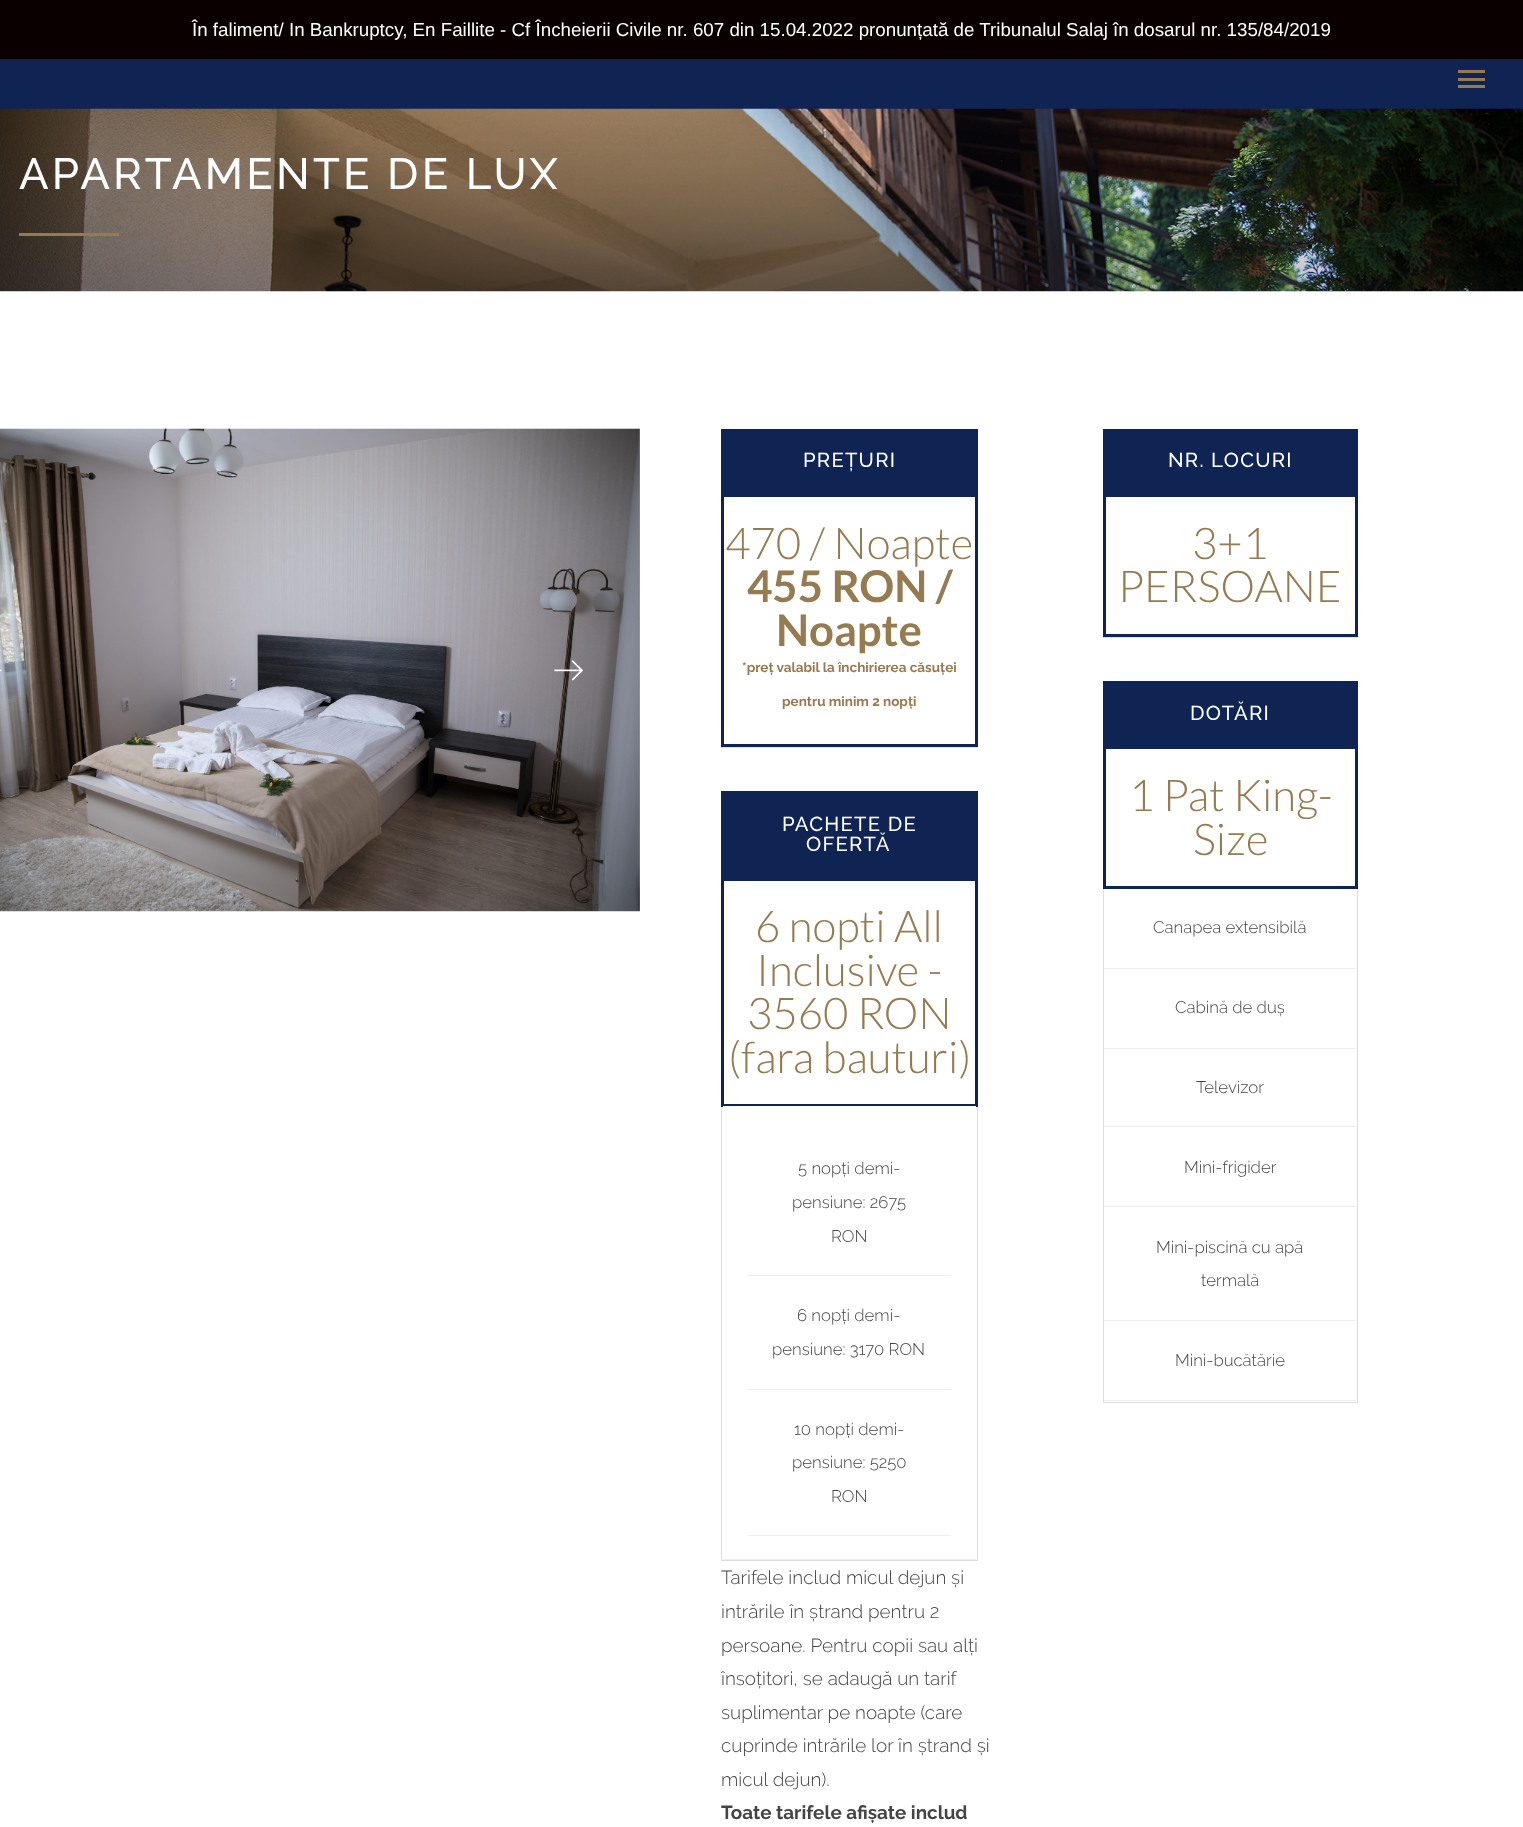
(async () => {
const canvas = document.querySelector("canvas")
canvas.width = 1523
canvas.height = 1827
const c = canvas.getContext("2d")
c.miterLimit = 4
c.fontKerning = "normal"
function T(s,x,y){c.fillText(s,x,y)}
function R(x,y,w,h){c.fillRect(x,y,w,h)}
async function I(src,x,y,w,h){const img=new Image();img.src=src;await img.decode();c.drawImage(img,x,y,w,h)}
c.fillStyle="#fff"
R(0,0,1523,1827)
c.fillStyle="#0a0000"
R(0,0,1523,59)
c.font="18.75px Liberation Sans"
c.fillStyle="#fff"
T("În faliment/ In Bankruptcy, En Faillite - Cf Încheierii Civile nr. 607 din 15.04.2022 pronunțată de Tribunalul Salaj în dosarul nr. 135/84/2019",192,36)
c.fillStyle="#0f2453"
R(0,59,1523,50)
c.fillStyle="#967a50"
R(1458,78,27,3)
R(1458,70,27,3)
R(1458,85,27,3)
await I("1.png",0,108,1523,184)
c.letterSpacing="3.25px"
c.font="500 43.75px Raleway"
c.fillStyle="#fff"
T("APARTAMENTE DE LUX",19,189)
c.fillStyle="#967a50"
R(19,233,100,3)
await I("2.png",0,428,640,484)
await I("3.png",0,669,2,3)
await I("4.png",554,660,29,21)
c.strokeStyle="#ddd"
c.strokeRect(721.5,429.5,256,318)
c.fillStyle="#0f2453"
R(721,429,257,68)
c.letterSpacing="1.25px"
c.font="500 20.25px Raleway"
c.fillStyle="#fff"
T("PREȚURI",803,467)
c.fillStyle="#0f2453"
R(975,494,3,252)
R(721,494,3,159)
c.letterSpacing="0px"
c.font="300 43.75px Lato"
c.fillStyle="#967a50"
T("470 / Noapte",725,559)
c.font="bold 43.75px Lato"
T("455 RON /",747,602)
T("Noapte",776,646)
c.fillStyle="#0f2453"
R(721,744,257,3)
R(721,653,3,93)
c.font="bold 13.5px Raleway"
c.fillStyle="#967a50"
T("*preț valabil la închirierea căsuței",742,672)
T("pentru minim 2 nopți",782,706)
c.strokeRect(721.5,791.5,256,769)
c.fillStyle="#0f2453"
R(721,791,257,90)
c.letterSpacing="1.25px"
c.font="500 20.25px Raleway"
c.fillStyle="#fff"
T("PACHETE DE",782,831)
T("OFERTĂ",806,851)
c.fillStyle="#0f2453"
R(975,878,3,228)
R(721,878,3,201)
c.letterSpacing="0px"
c.font="300 43.75px Lato"
c.fillStyle="#967a50"
T("6 nopti All",755,942)
T("Inclusive -",756,986)
T("3560 RON",747,1029)
T("(fara bauturi)",728,1073)
c.fillStyle="#0f2453"
R(721,1104,257,3)
R(721,1079,3,27)
c.fillStyle="#fff"
R(723,1106,253,1)
c.fillStyle="#eee"
R(723,1559,253,1)
R(748,1275,203,1)
c.font="300 16.75px Raleway"
c.fillStyle="#444"
T("5 nopți demi-",798,1174)
T("pensiune: 2675",792,1208)
T("RON",831,1242)
c.fillStyle="#eee"
R(748,1389,203,1)
c.fillStyle="#444"
T("6 nopți demi-",797,1321)
T("pensiune: 3170 RON",772,1355)
c.fillStyle="#eee"
R(748,1535,203,1)
c.fillStyle="#444"
T("10 nopți demi-",794,1435)
T("pensiune: 5250",792,1468)
T("RON",831,1502)
c.font="300 18.9px Raleway"
T("Tarifele includ micul dejun și",721,1584)
T("intrările în ștrand pentru 2",721,1618)
T("persoane. Pentru copii sau alți",721,1652)
T("însoțitori, se adaugă un tarif",721,1685)
T("suplimentar pe noapte (care",721,1719)
T("cuprinde intrările lor în ștrand și",721,1752)
T("micul dejun).",721,1786)
c.font="bold 18.9px Raleway"
T("Toate tarifele afișate includ",721,1819)
c.strokeRect(1103.5,429.5,254,208)
c.fillStyle="#0f2453"
R(1103,429,255,68)
c.letterSpacing="1.25px"
c.font="500 20.25px Raleway"
c.fillStyle="#fff"
T("NR. LOCURI",1168,467)
c.fillStyle="#0f2453"
R(1355,494,3,142)
R(1103,494,3,115)
c.letterSpacing="0px"
c.font="300 43.75px Lato"
c.fillStyle="#967a50"
T("3+1",1192,559)
T("PERSOANE",1118,602)
c.fillStyle="#0f2453"
R(1103,634,255,3)
R(1103,609,3,27)
c.strokeRect(1103.5,681.5,254,721)
R(1103,681,255,68)
c.letterSpacing="1.25px"
c.font="500 20.25px Raleway"
c.fillStyle="#fff"
T("DOTĂRI",1190,720)
c.fillStyle="#0f2453"
R(1355,746,3,143)
R(1103,746,3,115)
c.letterSpacing="0px"
c.font="300 43.75px Lato"
c.fillStyle="#967a50"
T("1 Pat King-",1129,811)
T("Size",1193,855)
c.fillStyle="#0f2453"
R(1103,886,255,3)
R(1103,861,3,28)
c.fillStyle="#eee"
R(1104,968,252,1)
c.font="300 16.75px Raleway"
c.fillStyle="#444"
T("Canapea extensibilă",1153,933)
c.fillStyle="#eee"
R(1104,1048,252,1)
c.fillStyle="#444"
T("Cabină de duș",1175,1013)
c.fillStyle="#eee"
R(1104,1126,252,1)
c.fillStyle="#444"
T("Televizor",1196,1093)
c.fillStyle="#eee"
R(1104,1206,252,1)
c.fillStyle="#444"
T("Mini-frigider",1184,1173)
c.fillStyle="#eee"
R(1104,1320,252,1)
c.fillStyle="#444"
T("Mini-piscină cu apă",1156,1253)
T("termală",1201,1286)
c.fillStyle="#eee"
R(1104,1400,252,1)
c.fillStyle="#444"
T("Mini-bucătărie",1175,1366)
})()
